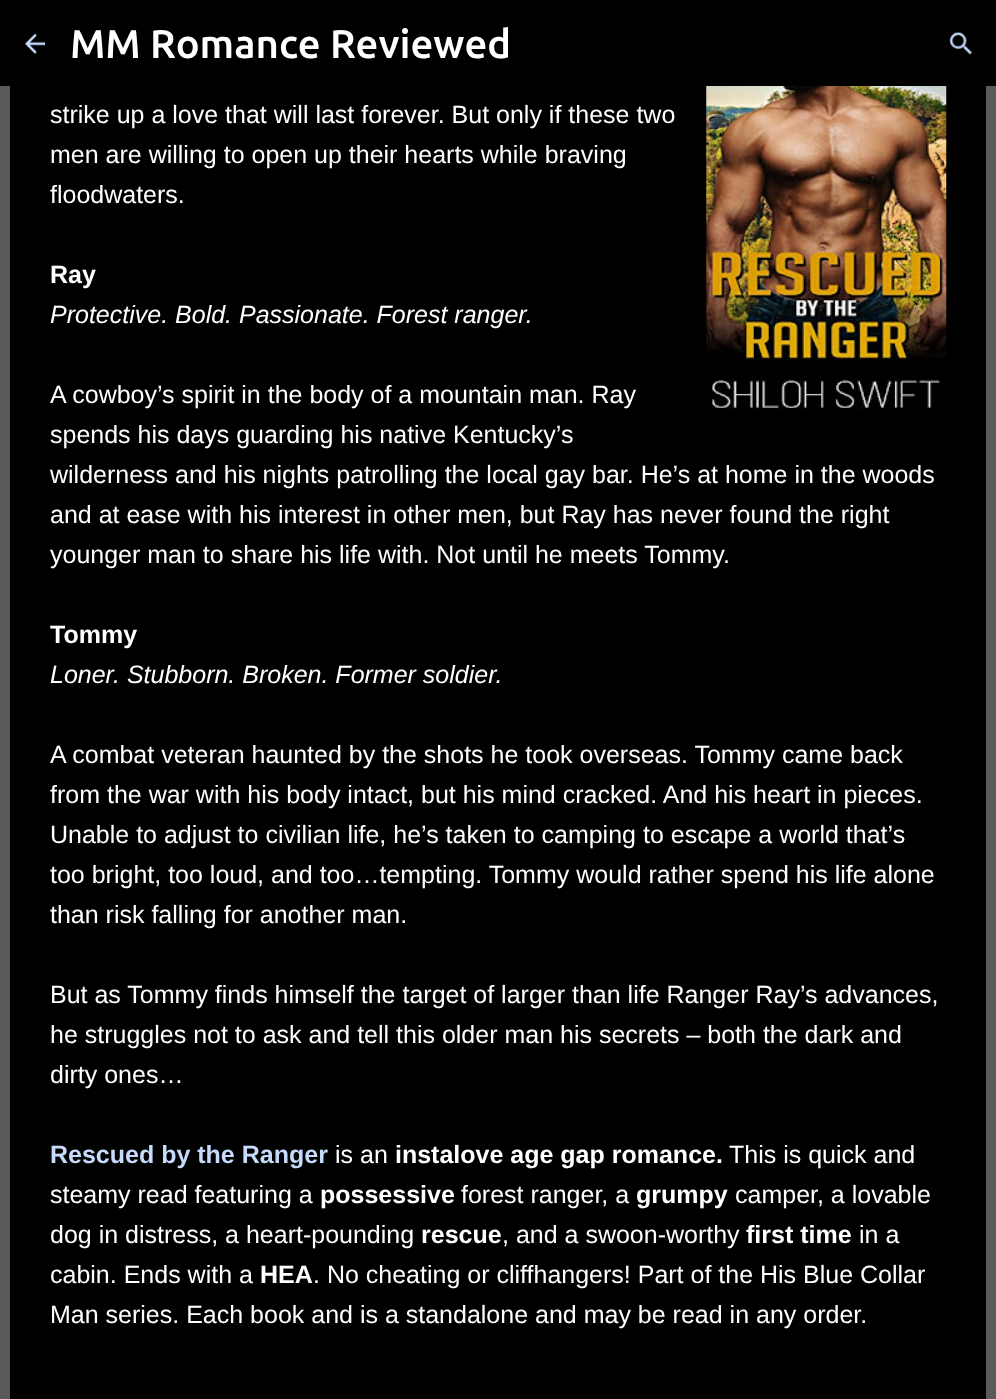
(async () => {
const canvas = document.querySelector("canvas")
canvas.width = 996
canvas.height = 1399
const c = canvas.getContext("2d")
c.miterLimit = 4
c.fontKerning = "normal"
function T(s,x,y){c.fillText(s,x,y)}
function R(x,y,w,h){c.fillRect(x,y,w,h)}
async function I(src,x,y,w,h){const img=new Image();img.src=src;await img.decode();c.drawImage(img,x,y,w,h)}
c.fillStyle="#5a5a5a"
R(0,0,996,1399)
c.fillStyle="#000"
R(0,0,996,86)
await I("1.png",25,33,20,21)
c.font="500 40px Ubuntu"
c.fillStyle="#fff"
T("MM Romance Reviewed",70,58)
await I("2.png",949,31,24,24)
c.fillStyle="#000"
R(10,86,976,1313)
c.font="25px Liberation Sans"
c.fillStyle="#fff"
T("strike up a love that will last forever. But only if these two",50,123)
T("men are willing to open up their hearts while braving",50,163)
T("floodwaters.",50,203)
await I("3.png",706,86,241,328)
c.font="bold 25px Liberation Sans"
T("Ray",50,283)
c.font="italic 25px Liberation Sans"
T("Protective. Bold. Passionate. Forest ranger.",50,323)
c.font="25px Liberation Sans"
T("A cowboy’s spirit in the body of a mountain man. Ray",50,403)
T("spends his days guarding his native Kentucky’s",50,443)
T("wilderness and his nights patrolling the local gay bar. He’s at home in the woods",50,483)
T("and at ease with his interest in other men, but Ray has never found the right",50,523)
T("younger man to share his life with. Not until he meets Tommy.",50,563)
c.font="bold 25px Liberation Sans"
T("Tommy",50,643)
c.font="italic 25px Liberation Sans"
T("Loner. Stubborn. Broken. Former soldier.",50,683)
c.font="25px Liberation Sans"
T("A combat veteran haunted by the shots he took overseas. Tommy came back",50,763)
T("from the war with his body intact, but his mind cracked. And his heart in pieces.",50,803)
T("Unable to adjust to civilian life, he’s taken to camping to escape a world that’s",50,843)
T("too bright, too loud, and too…tempting. Tommy would rather spend his life alone",50,883)
T("than risk falling for another man.",50,923)
T("But as Tommy finds himself the target of larger than life Ranger Ray’s advances,",50,1003)
T("he struggles not to ask and tell this older man his secrets – both the dark and",50,1043)
T("dirty ones…",50,1083)
c.font="bold 25px Liberation Sans"
c.fillStyle="#c6dafc"
T("Rescued by the Ranger",50,1163)
c.font="25px Liberation Sans"
c.fillStyle="#fff"
T("is an",335,1163)
c.font="bold 25px Liberation Sans"
T("instalove age gap romance.",395,1163)
c.font="25px Liberation Sans"
T("This is quick and",729,1163)
T("steamy read featuring a",50,1203)
c.font="bold 25px Liberation Sans"
T("possessive",320,1203)
c.font="25px Liberation Sans"
T("forest ranger, a",461,1203)
c.font="bold 25px Liberation Sans"
T("grumpy",636,1203)
c.font="25px Liberation Sans"
T("camper, a lovable",735,1203)
T("dog in distress, a heart-pounding",50,1243)
c.font="bold 25px Liberation Sans"
T("rescue",421,1243)
c.font="25px Liberation Sans"
T(", and a swoon-worthy",502,1243)
c.font="bold 25px Liberation Sans"
T("first time",746,1243)
c.font="25px Liberation Sans"
T("in a",859,1243)
T("cabin. Ends with a",50,1283)
c.font="bold 25px Liberation Sans"
T("HEA",260,1283)
c.font="25px Liberation Sans"
T(". No cheating or cliffhangers! Part of the His Blue Collar",313,1283)
T("Man series. Each book and is a standalone and may be read in any order.",50,1323)
})()
